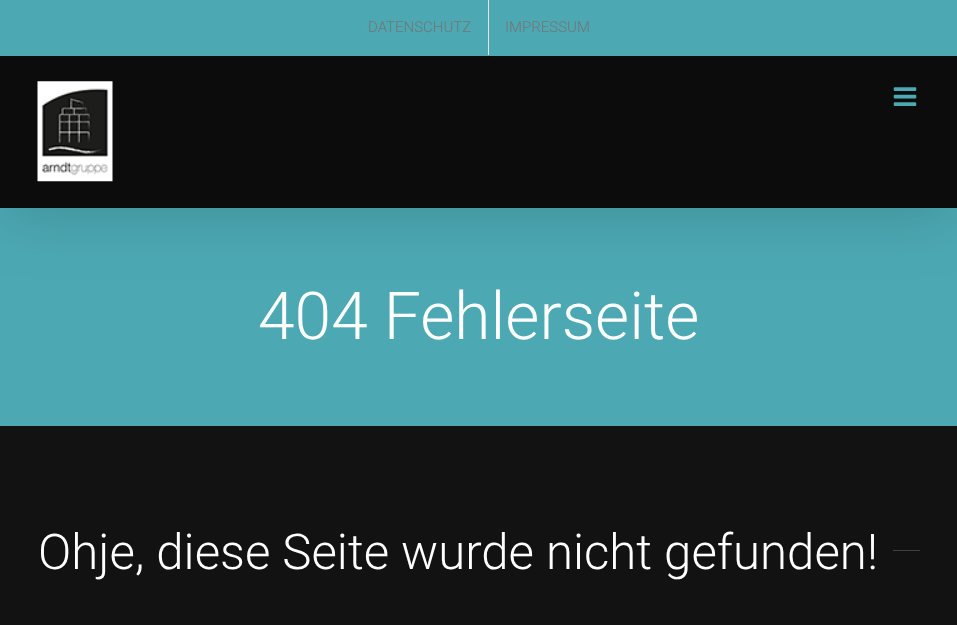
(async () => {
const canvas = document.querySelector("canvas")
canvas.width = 957
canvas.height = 625
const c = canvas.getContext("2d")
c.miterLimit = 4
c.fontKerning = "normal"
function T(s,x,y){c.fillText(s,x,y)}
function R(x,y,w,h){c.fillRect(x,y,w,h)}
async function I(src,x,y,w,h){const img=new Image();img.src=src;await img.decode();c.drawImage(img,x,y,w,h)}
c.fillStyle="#121213"
R(0,0,957,625)
c.fillStyle="#4ca9b4"
R(0,208,957,218)
c.fillStyle="#00000024"
c.filter="blur(31px)"
c.beginPath()
c.rect(3,15,952,203)
c.fill()
c.filter="none"
c.fillStyle="#4ca9b4"
R(0,0,957,56)
c.font="300 15px Roboto"
c.fillStyle="#747474"
T("DATENSCHUTZ",368,32)
c.fillStyle="#e5e5e5"
R(488,0,1,55)
c.fillStyle="#747474"
T("IMPRESSUM",505,32)
c.fillStyle="#0c0c0d"
R(0,56,957,152)
await I("1.png",37,81,76,101)
await I("2.png",893,87,24,19)
c.font="300 66px Roboto"
c.fillStyle="#fff"
T("404 Fehlerseite",258,339)
c.font="300 49.2px Roboto"
T("Ohje, diese Seite wurde nicht gefunden!",38,569)
c.fillStyle="#414142"
R(893,550,27,1)
})()
